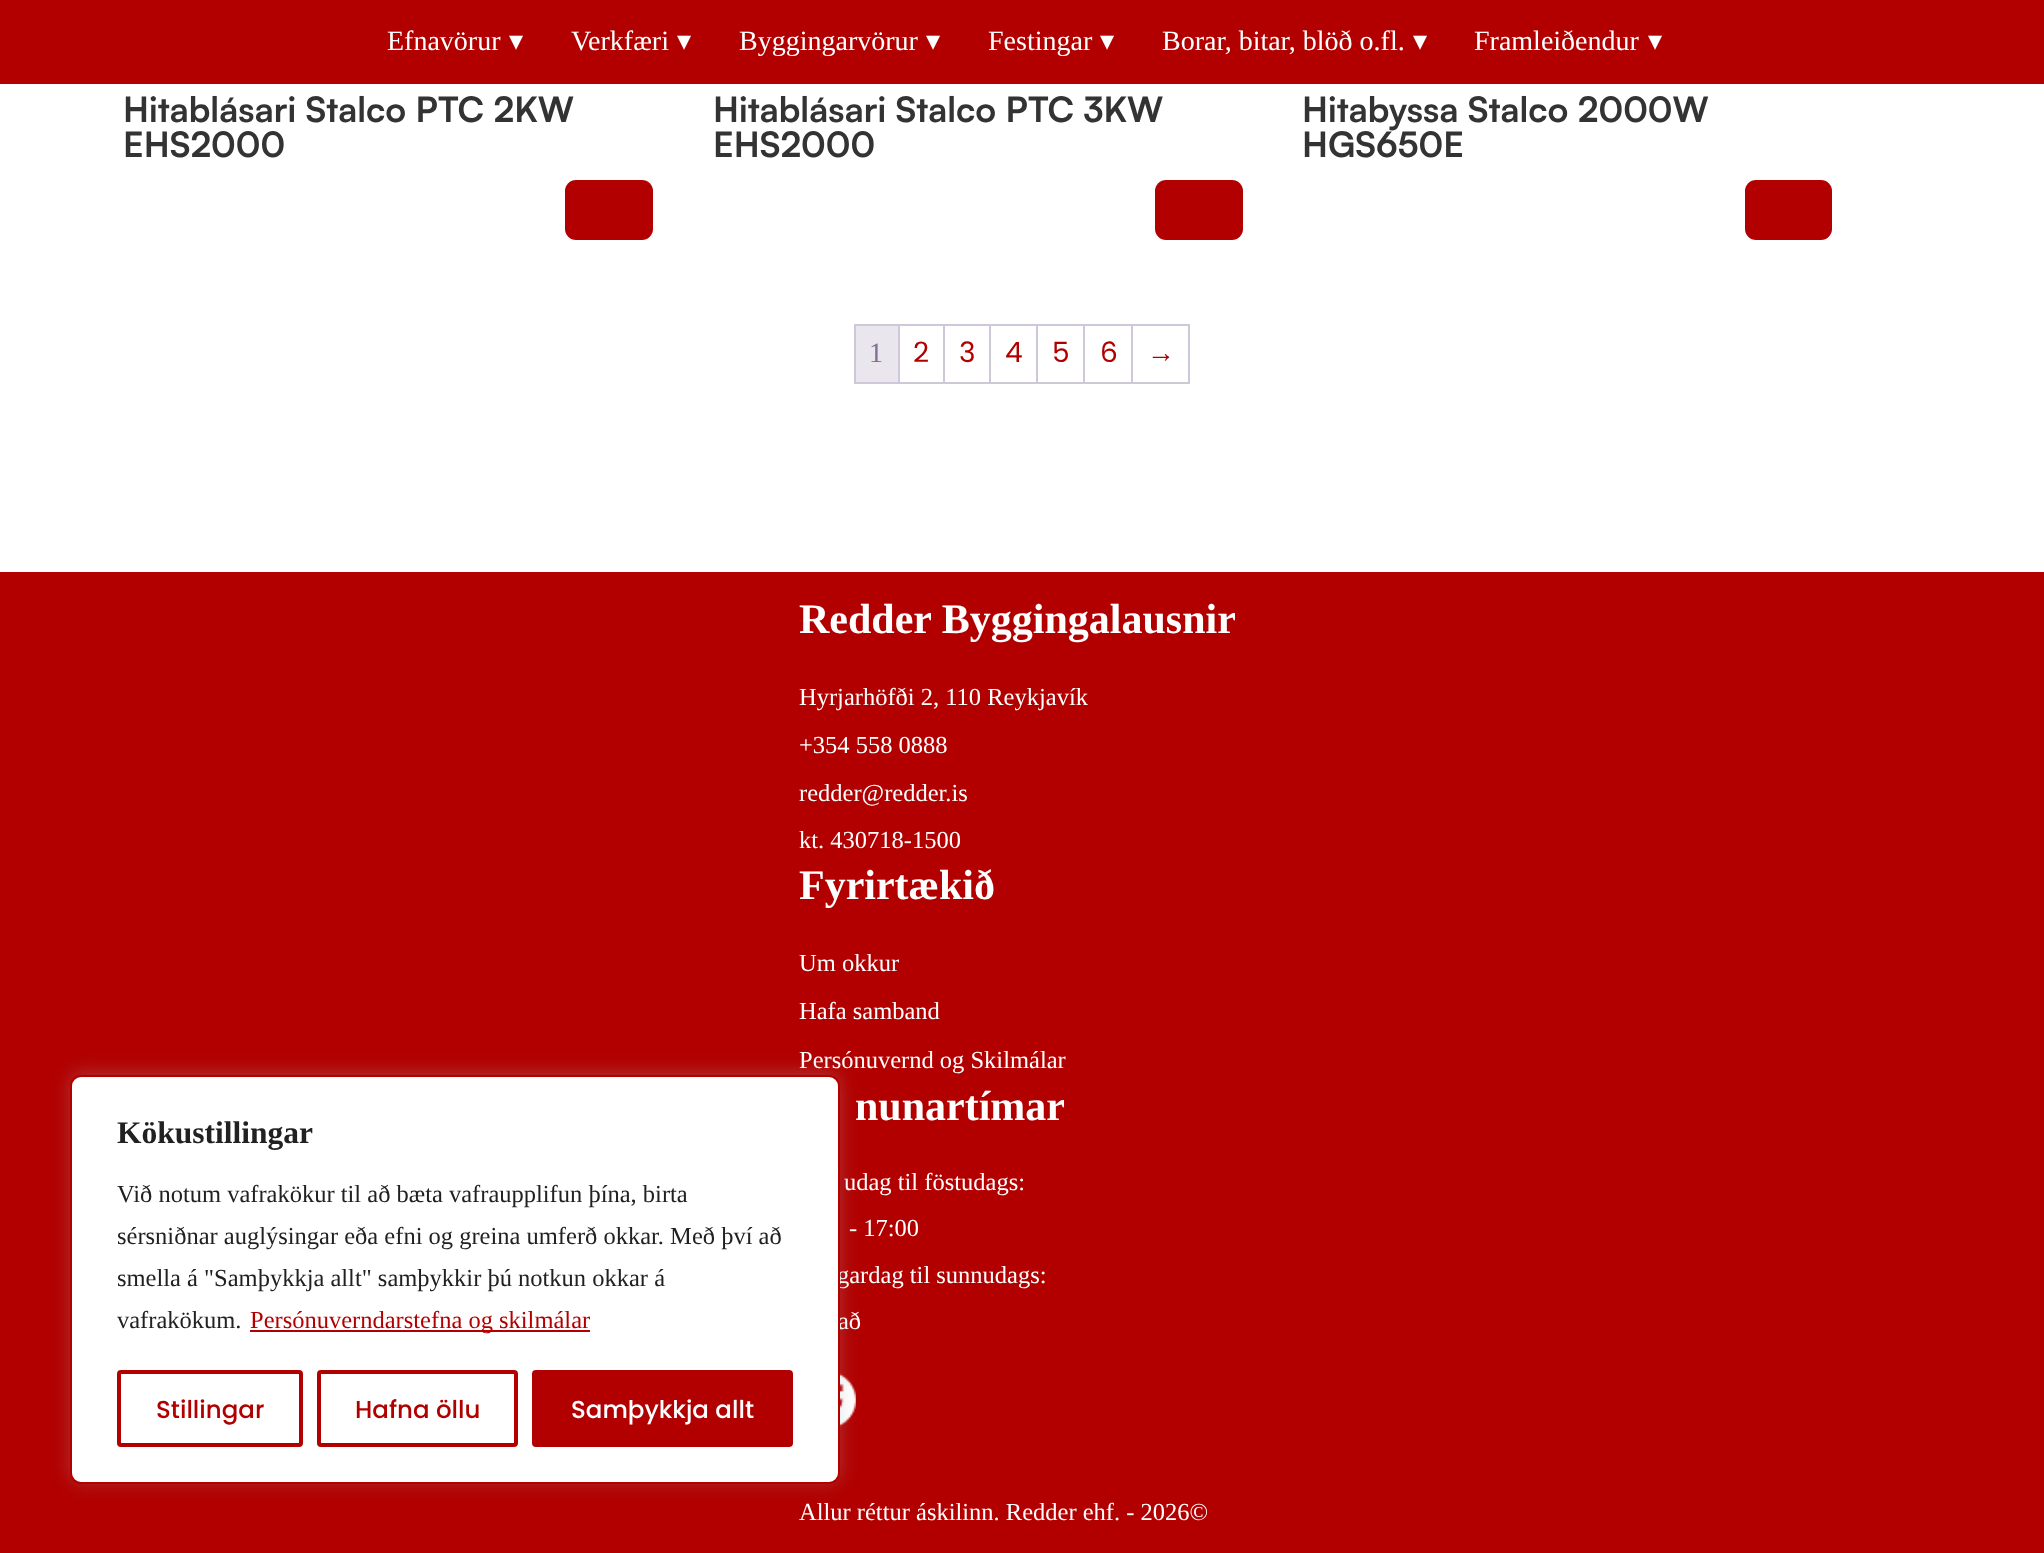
(async () => {
const canvas = document.querySelector("canvas")
canvas.width = 2044
canvas.height = 1553
const c = canvas.getContext("2d")
c.miterLimit = 4
c.fontKerning = "normal"
function T(s,x,y){c.fillText(s,x,y)}
function R(x,y,w,h){c.fillRect(x,y,w,h)}
function Q(x,y,w,h,r){c.beginPath();c.roundRect(x,y,w,h,r);c.fill()}
async function I(src,x,y,w,h){const img=new Image();img.src=src;await img.decode();c.drawImage(img,x,y,w,h)}
c.fillStyle="#fff"
R(0,0,2044,1553)
c.fillStyle="#b20000"
R(0,0,2044,84)
c.font="28px Liberation Serif"
c.fillStyle="#fff"
T("Efnavörur",387,50)
c.font="28px DejaVu Sans"
T("▾",509,50)
c.font="28px Liberation Serif"
T("Verkfæri",571,50)
c.font="28px DejaVu Sans"
T("▾",677,50)
c.font="28px Liberation Serif"
T("Byggingarvörur",739,50)
c.font="28px DejaVu Sans"
T("▾",926,50)
c.font="28px Liberation Serif"
T("Festingar",988,50)
c.font="28px DejaVu Sans"
T("▾",1100,50)
c.font="28px Liberation Serif"
T("Borar, bitar, blöð o.fl.",1162,50)
c.font="28px DejaVu Sans"
T("▾",1413,50)
c.font="28px Liberation Serif"
T("Framleiðendur",1474,50)
c.font="28px DejaVu Sans"
T("▾",1648,50)
c.font="bold 35px Satoshi"
c.fillStyle="#333"
T("Hitablásari Stalco PTC 2KW",123,122)
T("EHS2000",123,157)
c.fillStyle="#b20000"
Q(565,180,88,60,11)
c.fillStyle="#333"
T("Hitablásari Stalco PTC 3KW",713,122)
T("EHS2000",713,157)
c.fillStyle="#b20000"
Q(1155,180,88,60,11)
c.fillStyle="#333"
T("Hitabyssa Stalco 2000W",1302,122)
T("HGS650E",1302,157)
c.fillStyle="#b20000"
Q(1745,180,87,60,11)
c.fillStyle="#cfc8d8"
R(854,324,336,2)
R(854,382,336,2)
R(854,324,2,59)
R(898,326,2,56)
c.fillStyle="#e9e6ed"
R(856,326,42,56)
c.font="28px Liberation Serif"
c.fillStyle="#816f98"
T("1",869,362)
c.fillStyle="#cfc8d8"
R(943,326,2,56)
c.font="28px Poppins"
c.fillStyle="#b20000"
T("2",913,362)
c.fillStyle="#cfc8d8"
R(989,326,2,56)
c.fillStyle="#b20000"
T("3",959,362)
c.fillStyle="#cfc8d8"
R(1036,326,2,56)
c.fillStyle="#b20000"
T("4",1005,362)
c.fillStyle="#cfc8d8"
R(1083,326,2,56)
c.fillStyle="#b20000"
T("5",1052,362)
c.fillStyle="#cfc8d8"
R(1131,326,2,56)
c.fillStyle="#b20000"
T("6",1100,362)
c.fillStyle="#cfc8d8"
R(1188,326,2,56)
c.font="28px Liberation Sans"
c.fillStyle="#b20000"
T("→",1147,362)
R(0,572,2044,981)
c.font="bold 42px Liberation Serif"
c.fillStyle="#fff"
T("Redder Byggingalausnir",799,633)
c.font="24.5px Liberation Serif"
T("Hyrjarhöfði 2, 110 Reykjavík",799,705)
T("+354 558 0888",799,753)
T("redder@redder.is",799,801)
T("kt. 430718-1500",799,848)
c.font="bold 42px Liberation Serif"
T("Fyrirtækið",799,899)
c.font="24.5px Liberation Serif"
T("Um okkur",799,971)
T("Hafa samband",799,1019)
T("Persónuvernd og Skilmálar",799,1068)
c.font="bold 42px Liberation Serif"
T("nunartímar",855,1120)
c.font="24.5px Liberation Serif"
T("udag til föstudags:",844,1190)
T("- 17:00",849,1236)
T("gardag til sunnudags:",837,1283)
T("að",838,1329)
await I("1.png",840,1373,16,54)
T("Allur réttur áskilinn. Redder ehf. - 2026©",799,1520)
c.fillStyle="#acabab4d"
c.filter="blur(9px)"
c.beginPath()
c.roundRect(70,1073,770,409,11)
c.fill()
c.filter="none"
c.fillStyle="#fff"
c.beginPath()
c.roundRect(71,1076,768,407,10)
c.fill()
c.strokeStyle="#b20000"
c.lineWidth=2
c.stroke()
c.font="bold 31.5px Liberation Serif"
c.fillStyle="#212121"
T("Kökustillingar",117,1143)
c.font="24.5px Liberation Serif"
T("Við notum vafrakökur til að bæta vafraupplifun þína, birta",117,1202)
T("sérsniðnar auglýsingar eða efni og greina umferð okkar. Með því að",117,1244)
T("smella á \"Samþykkja allt\" samþykkir þú notkun okkar á",117,1286)
T("vafrakökum.",117,1328)
c.fillStyle="#b20000"
R(250,1330,340,2)
T("Persónuverndarstefna og skilmálar",250,1328)
c.beginPath()
c.roundRect(119,1372,182,73,2)
c.lineWidth=4
c.stroke()
c.font="500 24.5px Poppins"
T("Stillingar",156,1418)
c.beginPath()
c.roundRect(319,1372,197,73,2)
c.stroke()
T("Hafna öllu",355,1418)
c.beginPath()
c.roundRect(534,1372,257,73,2)
c.fill()
c.stroke()
c.fillStyle="#fff"
T("Samþykkja allt",571,1418)
})()
